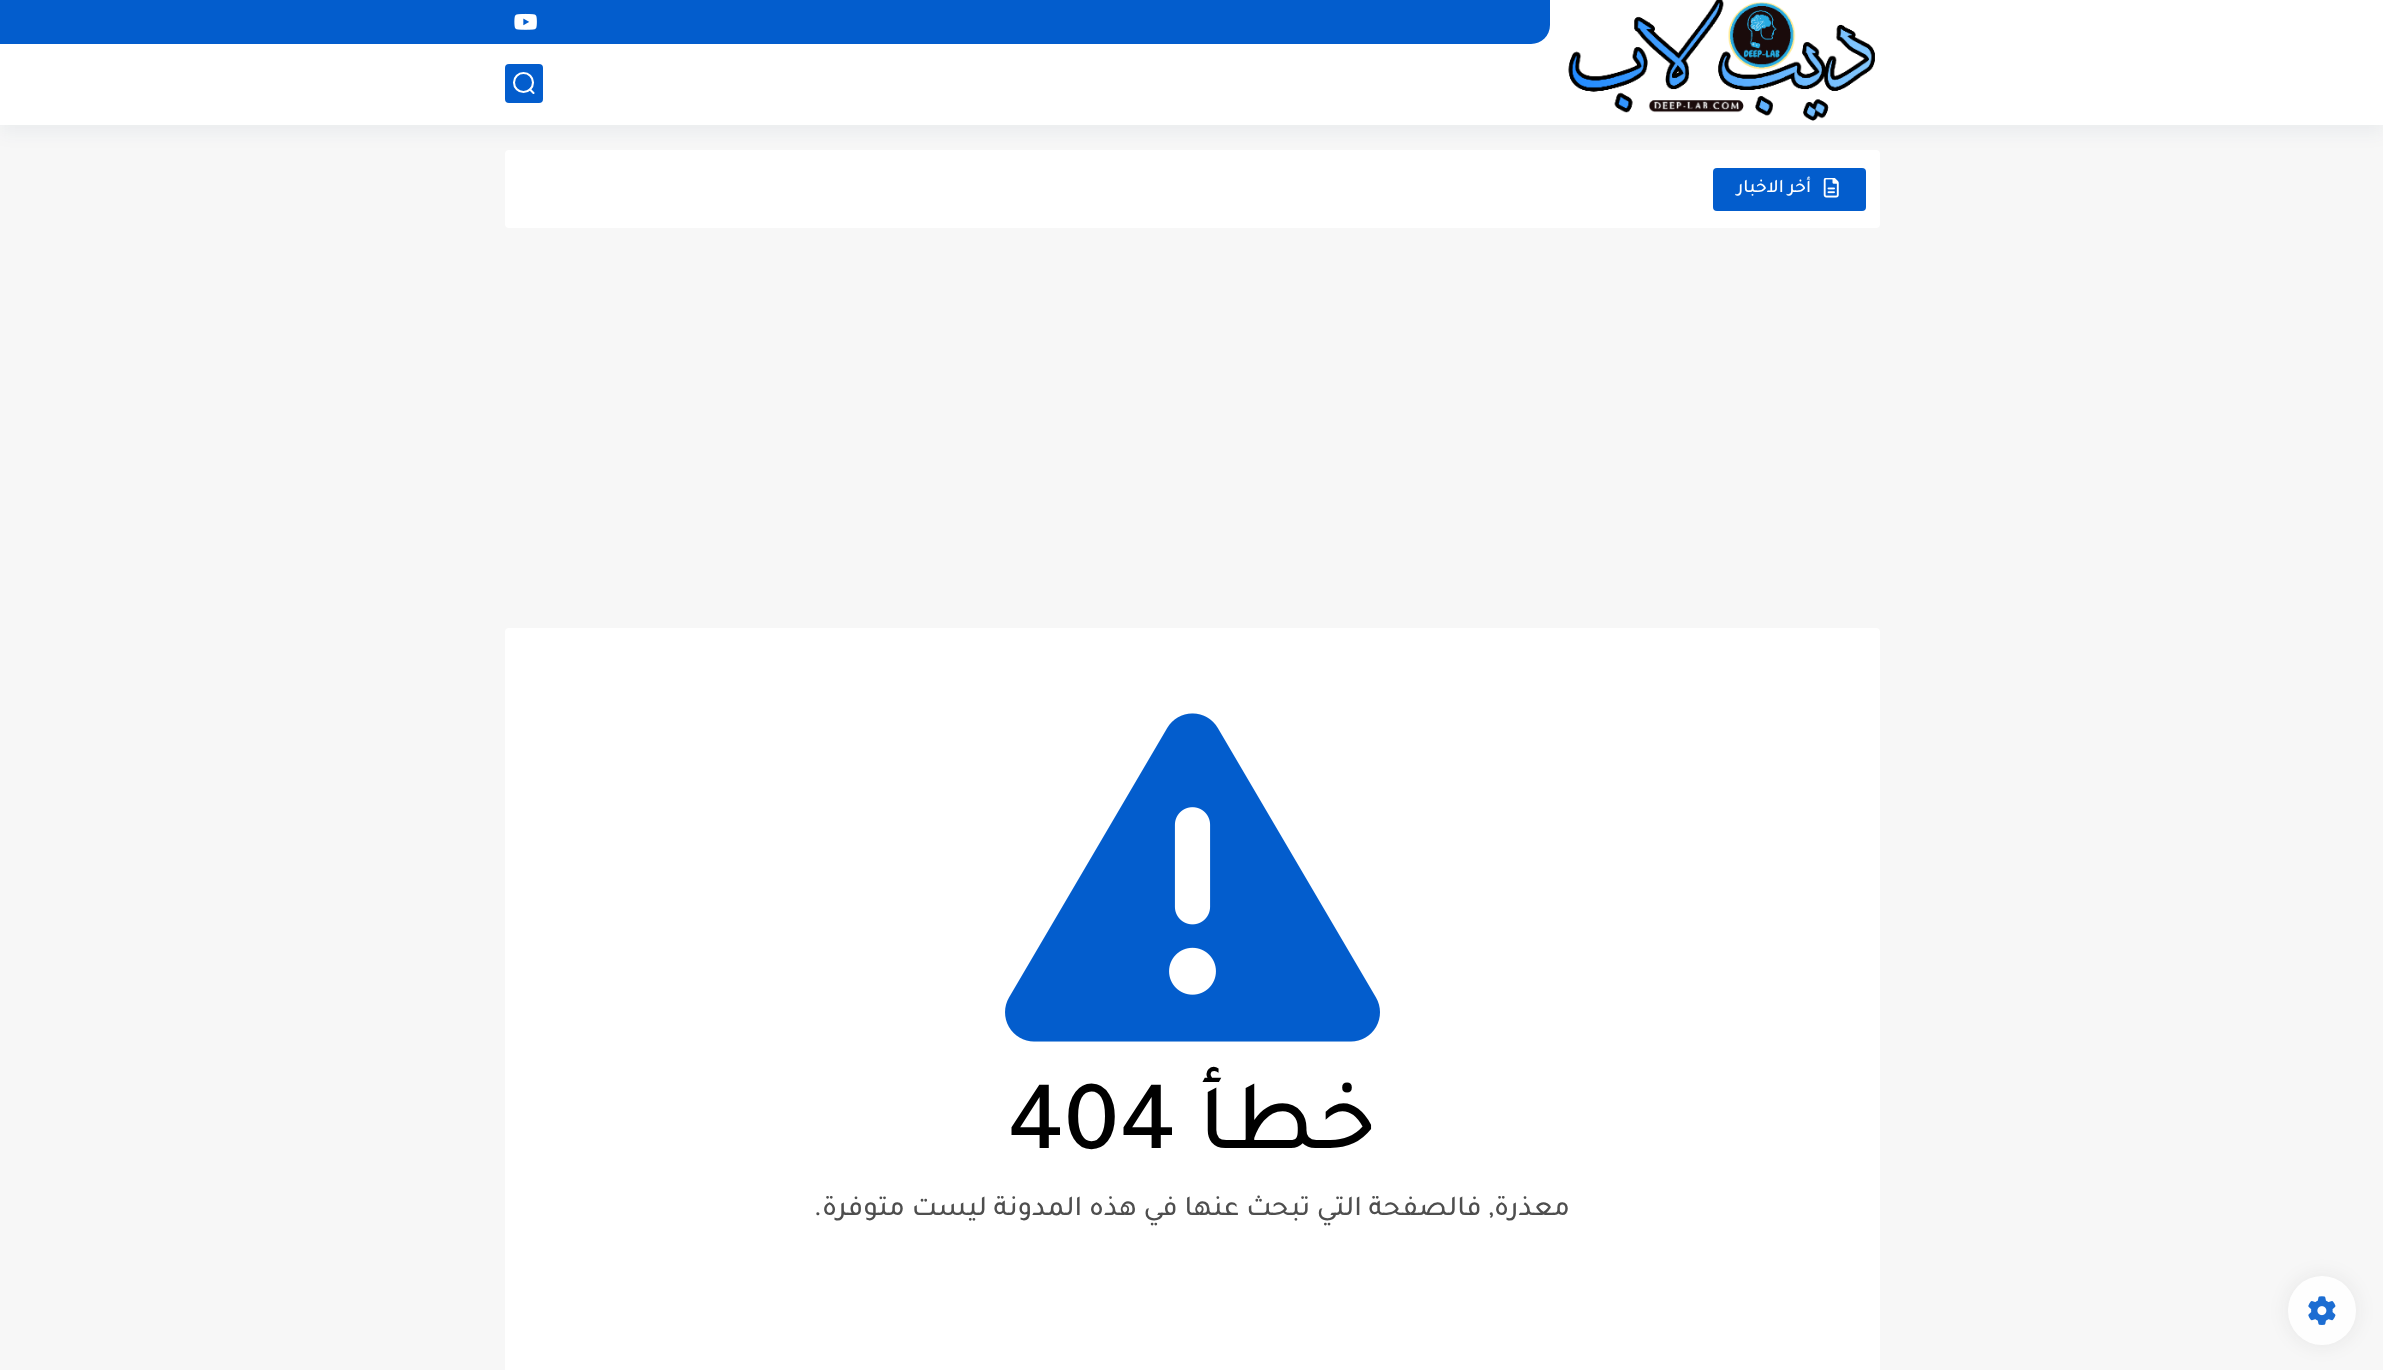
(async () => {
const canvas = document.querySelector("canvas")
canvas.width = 2383
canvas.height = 1370
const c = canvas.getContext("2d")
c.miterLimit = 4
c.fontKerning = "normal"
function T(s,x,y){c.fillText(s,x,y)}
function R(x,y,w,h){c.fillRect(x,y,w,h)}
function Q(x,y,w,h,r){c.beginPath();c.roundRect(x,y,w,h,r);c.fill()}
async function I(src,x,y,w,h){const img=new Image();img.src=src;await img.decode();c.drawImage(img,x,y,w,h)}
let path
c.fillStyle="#f7f7f7"
R(0,0,2383,1370)
c.fillStyle="#fff"
Q(505,150,1375,78,4)
c.fillStyle="#09204c0d"
c.filter="blur(9px)"
c.beginPath()
c.rect(0,8,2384,125)
c.fill()
c.filter="none"
c.fillStyle="#fff"
R(0,0,2383,125)
c.fillStyle="#035dcd"
path = new Path2D("M-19 0h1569v25c0 10.5-8.5 19-19 19h-1531c-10.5 0-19-8.5-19-19z")
c.fill(path)
await I("1.png",514,13,23,17)
await I("2.png",1568,0,307,121)
Q(505,64,38,39,4)
c.beginPath()
c.arc(523.5,82.5,9.5,0,7)
c.strokeStyle="#fff"
c.lineWidth=2.1
c.stroke()
path = new Path2D("M530 89.5l3.5 3.5")
c.lineCap="round"
c.lineJoin="round"
c.stroke(path)
Q(1713,168,153,43,4)
await I("3.png",1823,178,16,20)
c.direction="rtl"
c.font="500 19px Tajawal"
c.fillStyle="#fff"
T("أخر الاخبار",1811,192)
Q(505,628,1375,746,4)
await I("4.png",1005,713,375,329)
c.font="500 100px Tajawal"
c.fillStyle="#000"
T("خطأ",1376,1148)
c.direction="ltr"
T("404",1008,1148)
c.direction="rtl"
c.font="500 28.75px Tajawal"
c.fillStyle="#4e4e4e"
T("معذرة, فالصفحة التي تبحث عنها في هذه المدونة ليست متوفرة.",1570,1215)
c.fillStyle="#19191914"
c.filter="blur(9.5px)"
c.beginPath()
c.roundRect(2288,1276,68,69,34)
c.fill()
c.filter="none"
c.fillStyle="#fefefe"
Q(2288,1276,68,69,34)
await I("5.png",2308,1296,28,29)
})()
